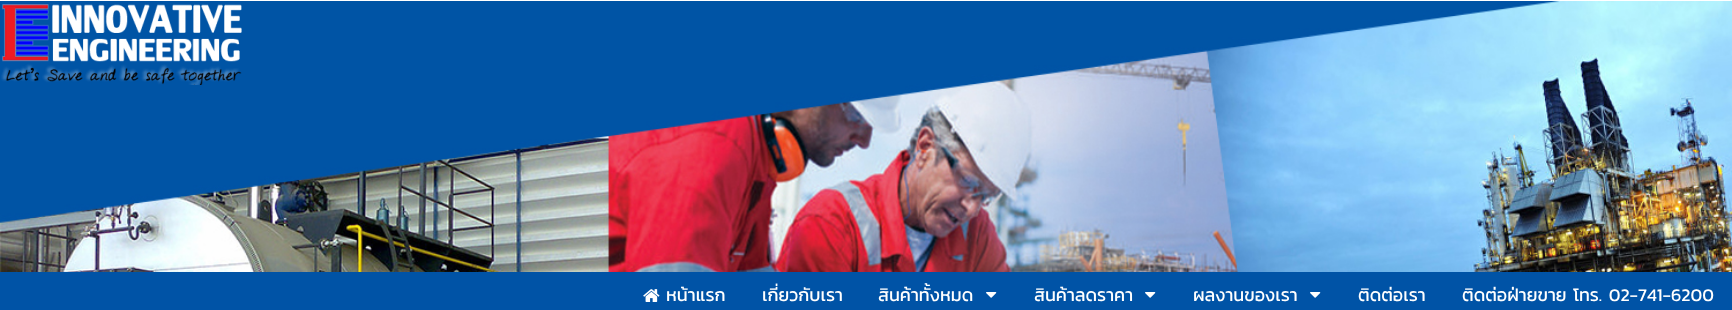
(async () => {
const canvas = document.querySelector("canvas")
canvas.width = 1732
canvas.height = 310
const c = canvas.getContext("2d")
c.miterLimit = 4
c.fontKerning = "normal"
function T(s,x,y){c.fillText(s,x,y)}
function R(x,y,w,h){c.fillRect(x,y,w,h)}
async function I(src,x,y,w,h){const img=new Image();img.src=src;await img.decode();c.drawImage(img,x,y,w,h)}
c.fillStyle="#fff"
R(0,0,1732,310)
await I("1.png",0,1,1732,271)
await I("2.png",1,4,241,81)
c.fillStyle="#0053a6"
R(0,272,1732,38)
await I("3.png",643,289,17,13)
c.font="18px Kanit"
c.fillStyle="#fff"
T("หน้าแรก",666,301)
T("เกี่ยวกับเรา",762,301)
T("สินค้าทั้งหมด",878,301)
await I("4.png",986,292,11,6)
T("สินค้าลดราคา",1034,301)
await I("4.png",1145,292,11,6)
T("ผลงานของเรา",1193,301)
await I("4.png",1310,292,11,6)
T("ติดต่อเรา",1358,301)
T("ติดต่อฝ่ายขาย โทร. 02-741-6200",1462,301)
})()
